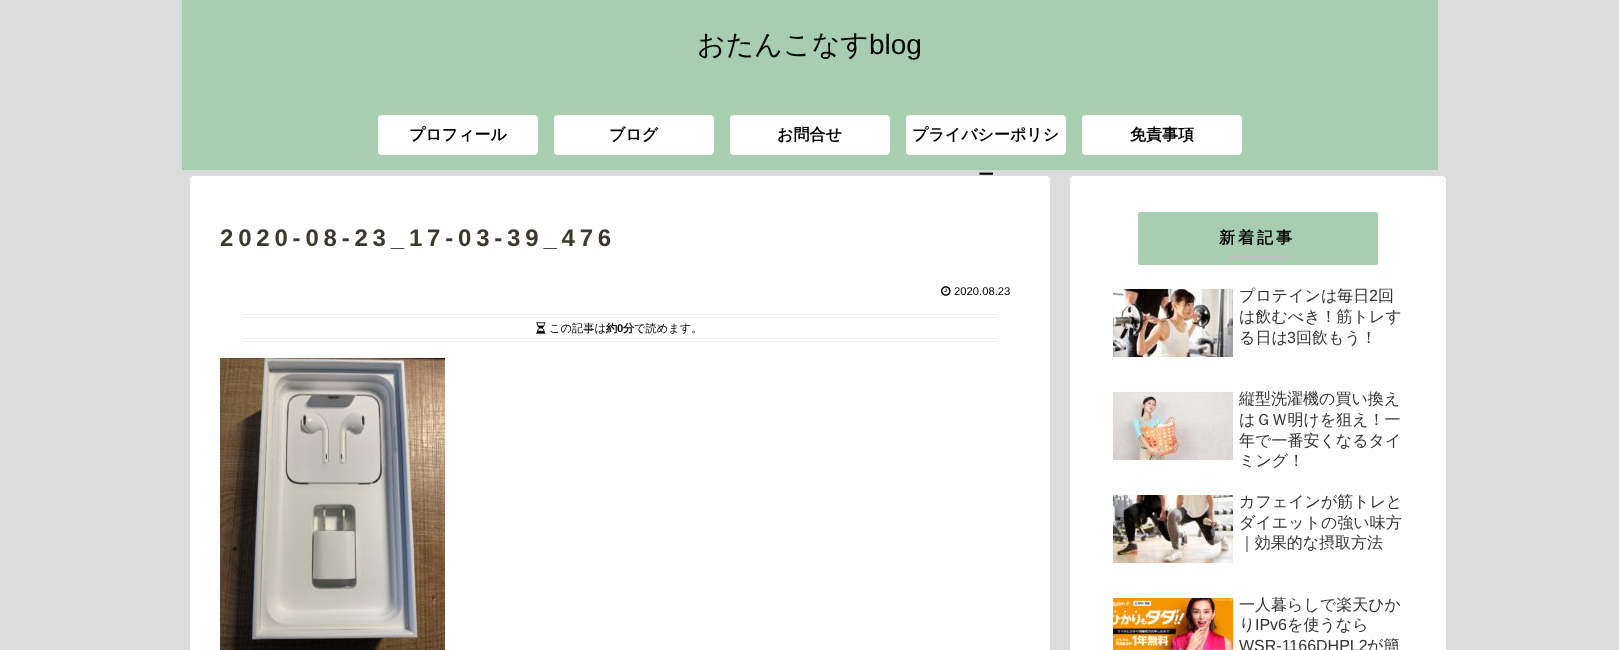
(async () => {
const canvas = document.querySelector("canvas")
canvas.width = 1619
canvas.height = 650
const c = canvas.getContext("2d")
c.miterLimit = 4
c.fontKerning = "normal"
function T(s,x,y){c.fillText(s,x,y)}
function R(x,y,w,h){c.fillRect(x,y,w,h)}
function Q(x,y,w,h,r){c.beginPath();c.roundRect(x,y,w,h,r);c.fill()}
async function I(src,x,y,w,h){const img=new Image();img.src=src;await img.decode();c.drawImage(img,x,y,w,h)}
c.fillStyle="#dbdbdb"
R(0,0,1619,650)
c.fillStyle="#a7ceb1"
R(182,0,1256,170)
c.font="500 28px WenQuanYi Zen Hei"
c.fillStyle="#000"
T("おたんこなす",697,54)
c.font="28px Liberation Sans"
T("blog",869,54)
c.fillStyle="#fff"
Q(378,115,160,40,4)
c.font="bold 16px WenQuanYi Zen Hei"
c.fillStyle="#000"
T("プロフィール",409,140)
c.fillStyle="#fff"
Q(554,115,160,40,4)
c.fillStyle="#000"
T("ブログ",609,140)
c.fillStyle="#fff"
Q(730,115,160,40,4)
c.fillStyle="#000"
T("お問合せ",777,140)
c.fillStyle="#fff"
Q(906,115,160,40,4)
c.fillStyle="#000"
T("プライバシーポリシ",912,140)
T("ー",978,180)
c.fillStyle="#fff"
Q(1082,115,160,40,4)
c.fillStyle="#000"
T("免責事項",1130,140)
c.fillStyle="#fff"
Q(190,176,860,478,4)
c.letterSpacing="4.8px"
c.font="bold 24px Liberation Sans"
c.fillStyle="#3b382d"
T("2020-08-23_17-03-39_476",220,246)
await I("1.png",941,286,10,10)
c.letterSpacing="0px"
c.font="11.25px Liberation Sans"
c.fillStyle="#000"
T("2020.08.23",954,295)
c.fillStyle="#eee"
R(244,314,752,1)
R(244,317,752,1)
R(244,338,752,1)
R(244,341,752,1)
await I("2.png",536,322,10,12)
c.font="500 11.25px WenQuanYi Zen Hei"
c.fillStyle="#000"
T("この記事は",549,332)
c.font="bold 11.25px WenQuanYi Zen Hei"
T("約",606,332)
c.font="bold 11.25px Liberation Sans"
T("0",617,332)
c.font="bold 11.25px WenQuanYi Zen Hei"
T("分",623,332)
c.font="500 11.25px WenQuanYi Zen Hei"
T("で読めます。",634,332)
await I("3.png",220,358,225,292)
c.fillStyle="#fff"
Q(1070,176,376,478,4)
c.fillStyle="#a7ceb1"
Q(1138,212,240,53,2)
c.letterSpacing="3px"
c.font="bold 16px WenQuanYi Zen Hei"
c.fillStyle="#000"
T("新着記事",1219,243)
c.fillStyle="#c0c0c0"
R(1228,256,60,3)
await I("4.png",1113,289,120,68)
c.letterSpacing="0px"
c.font="500 16px WenQuanYi Zen Hei"
c.fillStyle="#333"
T("プロテインは毎日",1239,301)
c.font="16px Liberation Sans"
T("2",1369,301)
c.font="500 16px WenQuanYi Zen Hei"
T("回",1378,301)
T("は飲むべき！筋トレす",1239,322)
T("る日は",1239,343)
c.font="16px Liberation Sans"
T("3",1287,343)
c.font="500 16px WenQuanYi Zen Hei"
T("回飲もう！",1296,343)
await I("5.png",1113,392,120,68)
T("縦型洗濯機の買い換え",1239,404)
T("はＧＷ明けを狙え！一",1239,425)
T("年で一番安くなるタイ",1239,446)
T("ミング！",1239,466)
await I("6.png",1113,495,120,68)
T("カフェインが筋トレと",1239,507)
T("ダイエットの強い味方",1239,528)
T("｜効果的な摂取方法",1239,548)
await I("7.png",1113,598,120,52)
T("一人暮らしで楽天ひか",1239,610)
T("り",1239,630)
c.font="16px Liberation Sans"
T("IPv6",1255,630)
c.font="500 16px WenQuanYi Zen Hei"
T("を使うなら",1287,630)
c.font="16px Liberation Sans"
T("WSR-1166DHPL2",1239,651)
c.font="500 16px WenQuanYi Zen Hei"
T("が簡",1367,651)
})()
